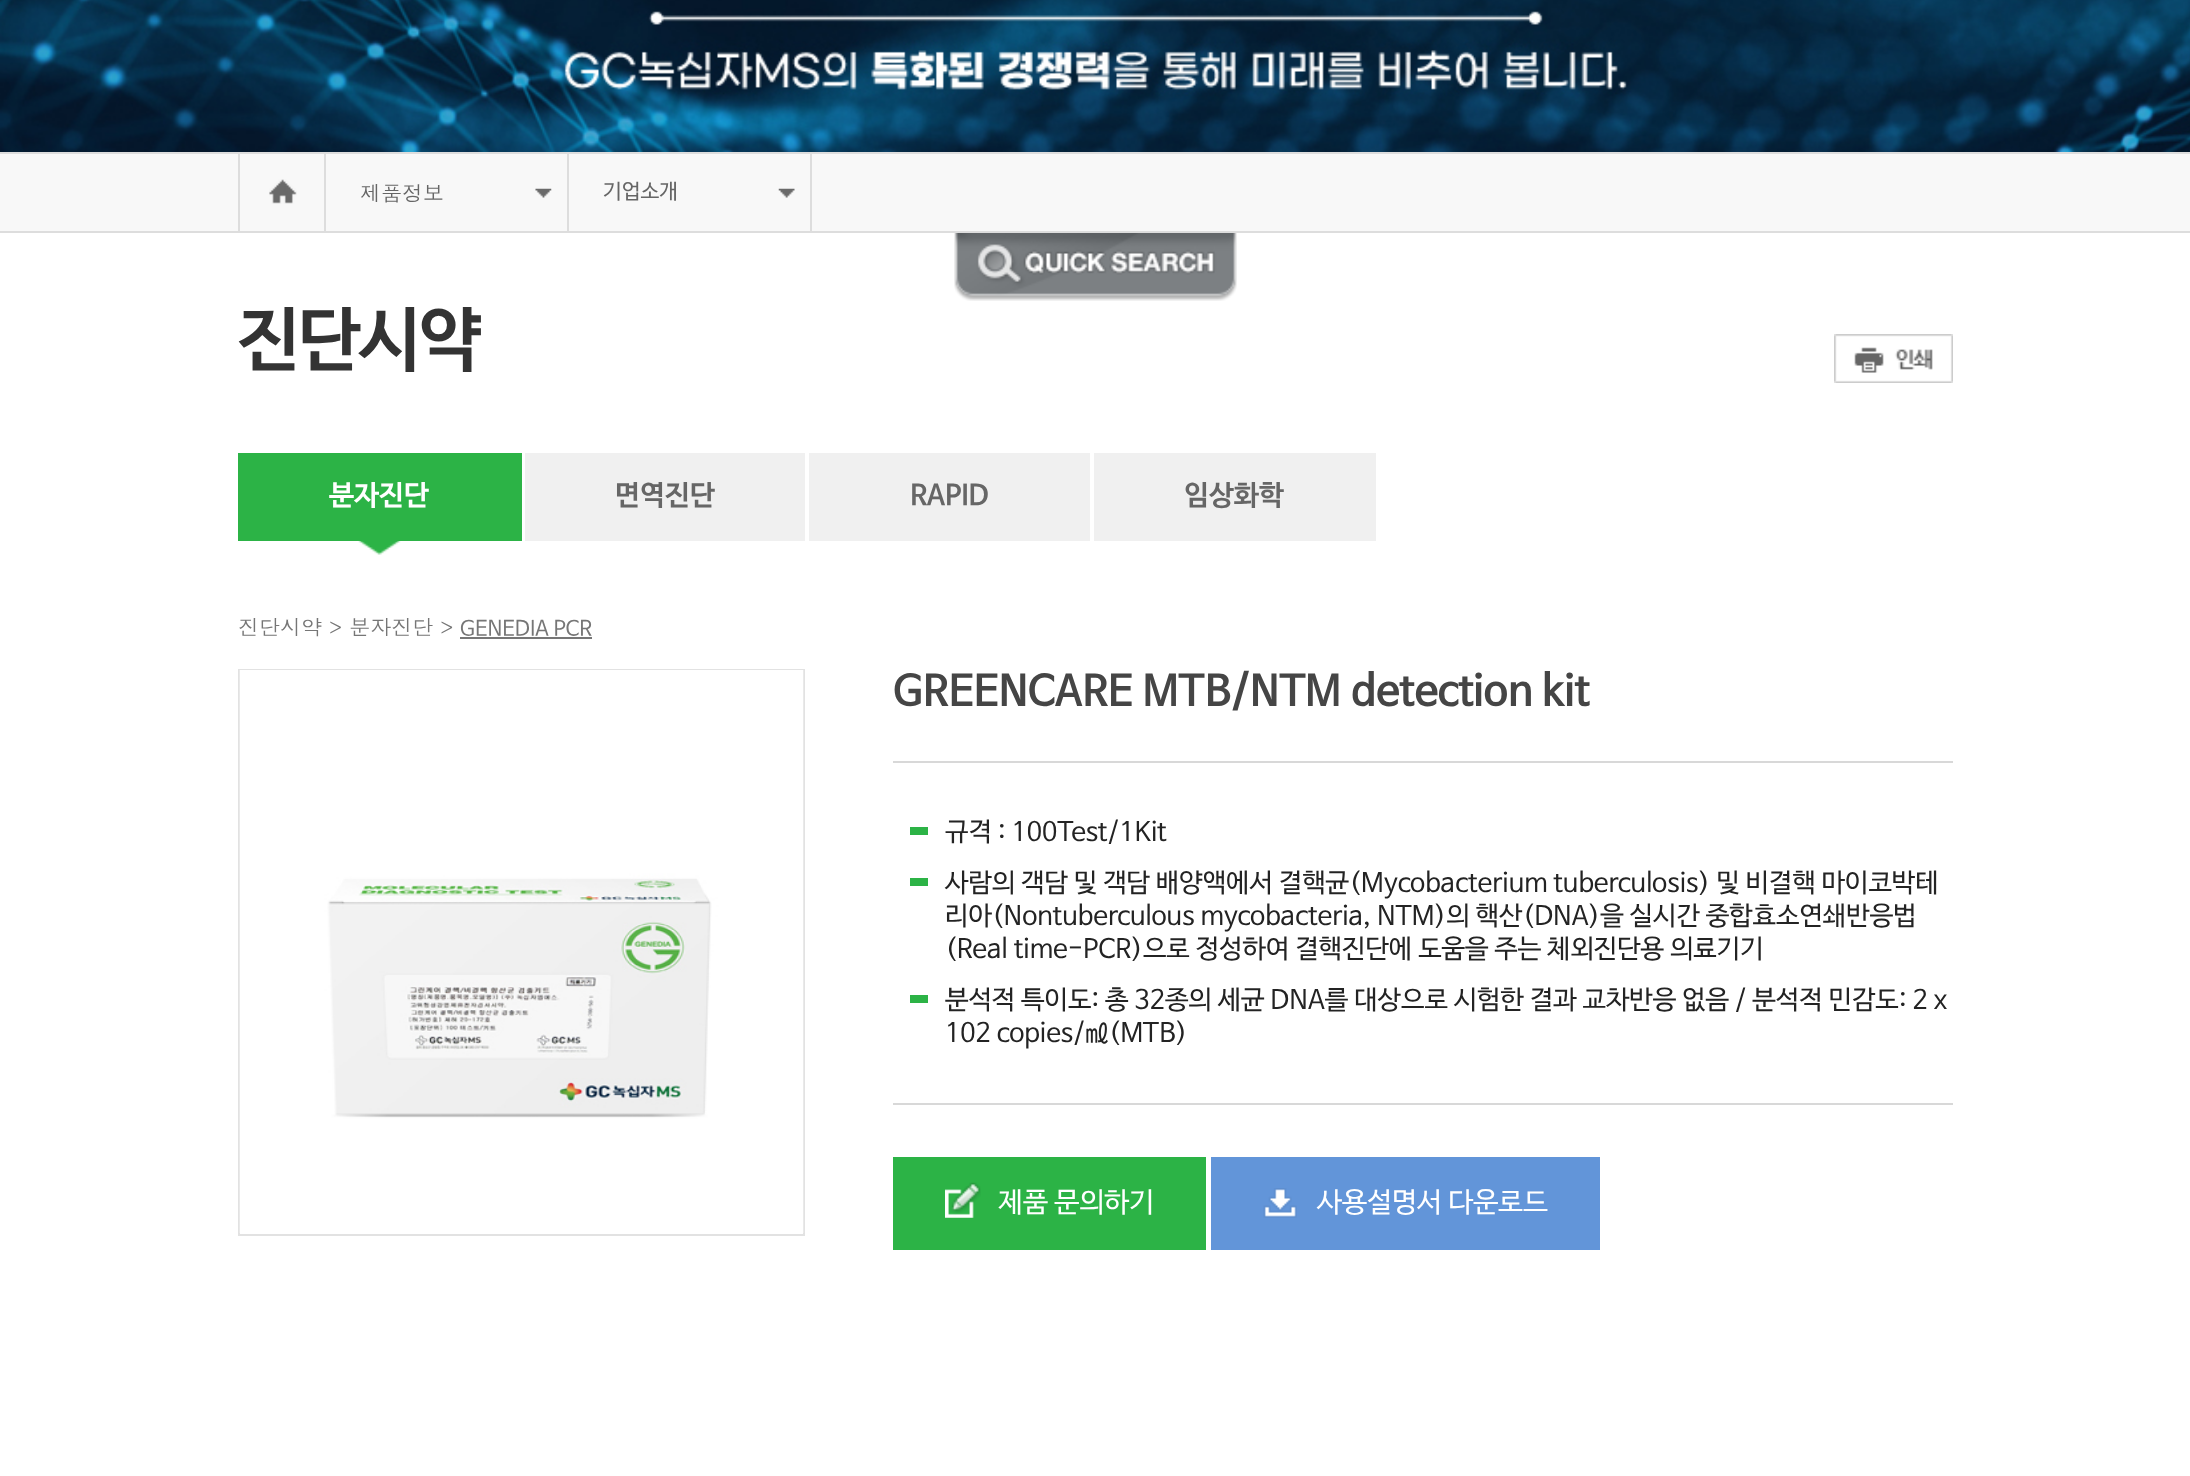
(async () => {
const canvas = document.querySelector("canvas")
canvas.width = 2190
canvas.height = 1476
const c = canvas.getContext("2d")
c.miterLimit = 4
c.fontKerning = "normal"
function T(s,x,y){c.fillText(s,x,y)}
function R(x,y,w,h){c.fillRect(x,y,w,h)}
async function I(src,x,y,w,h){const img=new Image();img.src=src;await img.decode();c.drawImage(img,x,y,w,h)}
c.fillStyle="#fff"
R(0,0,2190,1476)
await I("1.png",0,0,2190,152)
await I("2.png",2145,131,1,6)
c.fillStyle="#f8f8f8"
R(0,154,2190,77)
c.fillStyle="#ddd"
R(0,152,2190,2)
R(0,231,2190,2)
R(238,154,2,77)
R(324,154,2,77)
await I("3.png",269,179,28,25)
R(567,154,2,77)
await I("4.png",535,188,17,10)
c.font="21px Dotum"
c.fillStyle="#666"
T("제품정보",360,201)
c.fillStyle="#ddd"
R(810,154,2,77)
await I("5.png",778,188,17,10)
c.font="21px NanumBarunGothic"
c.fillStyle="#666"
T("기업소개",603,198)
await I("6.png",954,233,283,68)
c.letterSpacing="-2px"
c.font="bold 70px NanumBarunGothic"
c.fillStyle="#333"
T("진단시약",238,362)
await I("7.png",1834,334,119,49)
await I("8.png",358,541,43,14)
c.fillStyle="#2cb346"
R(238,453,284,88)
c.letterSpacing="0px"
c.font="bold 28px NanumBarunGothic"
c.fillStyle="#fff"
T("분자진단",329,504)
c.fillStyle="#f0f0f0"
R(525,453,280,88)
c.fillStyle="#666"
T("면역진단",615,504)
c.fillStyle="#f0f0f0"
R(809,453,281,88)
c.fillStyle="#666"
T("RAPID",910,504)
c.fillStyle="#f0f0f0"
R(1094,453,282,88)
c.fillStyle="#666"
T("임상화학",1184,504)
c.font="21px Dotum"
c.fillStyle="#767676"
T("진단시약 > 분자진단 >",238,635)
c.font="21px NanumBarunGothic"
T("GENEDIA PCR",460,635)
R(460,637,132,2)
c.strokeStyle="#e2e2e2"
c.lineWidth=2
c.strokeRect(239,670,565,565)
await I("9.png",239,670,565,563)
c.fillStyle="#d8d8d8"
R(893,1103,1060,2)
R(893,761,1060,2)
c.font="bold 42px NanumBarunGothic"
c.fillStyle="#454545"
T("GREENCARE MTB/NTM detection kit",893,704)
c.fillStyle="#2cb346"
R(910,827,18,8)
c.font="26.25px NanumBarunGothic"
c.fillStyle="#232323"
T("규격 : 100Test/1Kit",945,840)
c.fillStyle="#2cb346"
R(910,878,18,8)
c.fillStyle="#232323"
T("사람의 객담 및 객담 배양액에서 결핵균(Mycobacterium tuberculosis) 및 비결핵 마이코박테",945,891)
T("리아(Nontuberculous mycobacteria, NTM)의 핵산(DNA)을 실시간 중합효소연쇄반응법",945,924)
T("(Real time-PCR)으로 정성하여 결핵진단에 도움을 주는 체외진단용 의료기기",945,957)
c.fillStyle="#2cb346"
R(910,995,18,8)
c.fillStyle="#232323"
T("분석적 특이도: 총 32종의 세균 DNA를 대상으로 시험한 결과 교차반응 없음 / 분석적 민감도: 2 x",945,1008)
T("102 copies/㎖(MTB)",945,1041)
c.fillStyle="#2cb346"
R(893,1157,313,93)
await I("10.png",945,1182,36,36)
c.font="28px NanumBarunGothic"
c.fillStyle="#fff"
T("제품 문의하기",998,1211)
c.fillStyle="#6295d9"
R(1211,1157,389,93)
await I("11.png",1263,1188,34,30)
c.fillStyle="#fff"
T("사용설명서 다운로드",1317,1211)
})()
